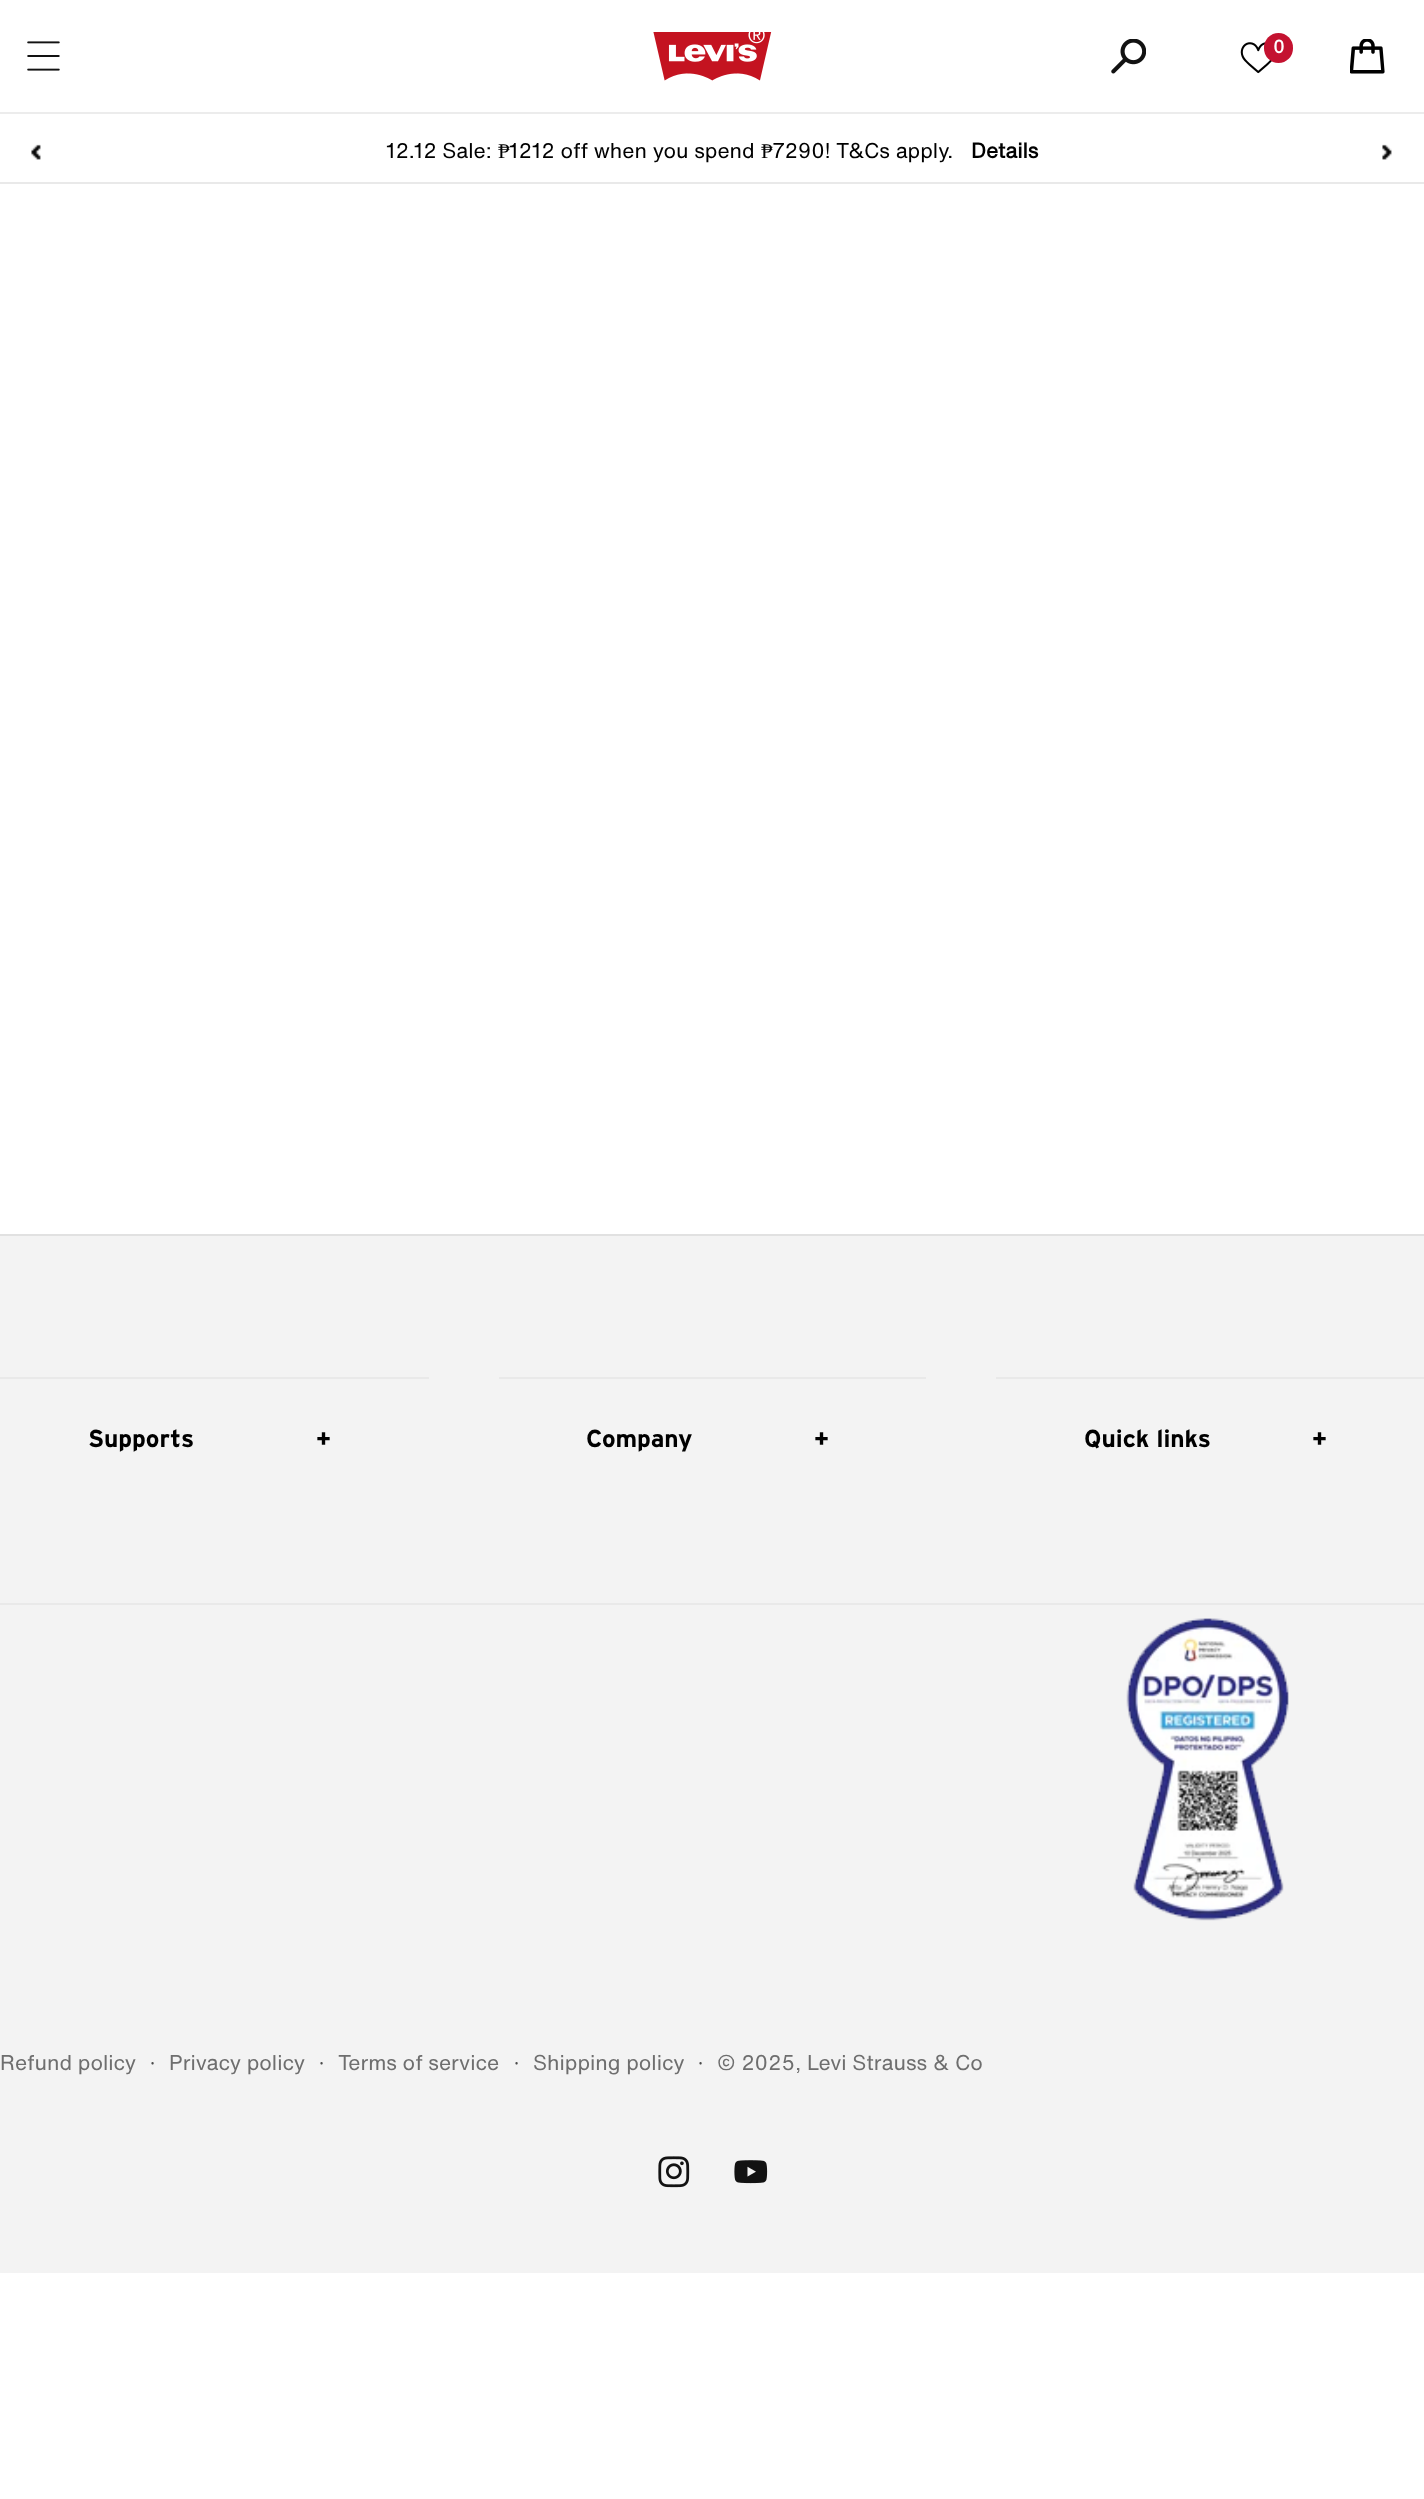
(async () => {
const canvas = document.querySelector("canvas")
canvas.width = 1424
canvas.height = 2499
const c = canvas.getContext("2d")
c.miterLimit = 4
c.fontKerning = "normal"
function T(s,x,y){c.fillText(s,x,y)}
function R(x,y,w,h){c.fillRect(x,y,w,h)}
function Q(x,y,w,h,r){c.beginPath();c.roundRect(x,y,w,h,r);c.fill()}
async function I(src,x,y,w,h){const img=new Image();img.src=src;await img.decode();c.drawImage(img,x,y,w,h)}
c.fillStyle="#fff"
R(0,0,1424,2499)
c.fillStyle="#ececec"
R(0,112,1424,2)
await I("1.png",27,41,33,30)
await I("2.png",653,32,119,49)
await I("3.png",1111,39,35,35)
await I("4.png",1240,42,32,32)
c.fillStyle="#c41230"
Q(1264,33,29,30,14.5)
c.font="bold 18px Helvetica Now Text"
c.fillStyle="#fff"
T("0",1273,53)
await I("5.png",1350,39,35,35)
c.fillStyle="#e9e9e9"
R(0,182,1424,2)
c.font="21px Helvetica Now Text"
c.fillStyle="#000"
T("12.12 Sale:",386,158)
c.font="21px Liberation Serif"
T("₱",498,158)
c.font="21px Helvetica Now Text"
T("1212 off when you spend",509,158)
c.font="21px Liberation Serif"
T("₱",761,158)
c.font="21px Helvetica Now Text"
T("7290! T&Cs apply.",772,158)
c.font="bold 21px Helvetica Now Text"
T("Details",971,158)
await I("6.png",31,144,10,16)
await I("7.png",1382,144,10,16)
c.fillStyle="#f3f3f3"
R(0,1236,1424,1037)
c.fillStyle="#e1e1e1"
R(0,1234,1424,2)
c.fillStyle="#e9e9e9"
R(0,1377,429,2)
c.font="bold 24.5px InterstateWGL"
c.fillStyle="#000"
T("Supports",88,1447)
T("+",316,1447)
c.fillStyle="#e9e9e9"
R(499,1377,427,2)
c.fillStyle="#000"
T("Company",586,1447)
T("+",814,1447)
c.fillStyle="#e9e9e9"
R(996,1377,428,2)
c.fillStyle="#000"
T("Quick links",1084,1447)
T("+",1312,1447)
c.fillStyle="#e9e9e9"
R(0,1603,1424,2)
await I("8.png",1126,1618,163,303)
c.font="21px Helvetica Now Text"
c.fillStyle="#6e6e6e"
T("Refund policy",0,2070)
c.font="21px Assistant"
c.fillStyle="#4a4a4a"
T("·",150,2070)
c.font="21px Helvetica Now Text"
c.fillStyle="#6e6e6e"
T("Privacy policy",169,2070)
c.font="21px Assistant"
c.fillStyle="#4a4a4a"
T("·",319,2070)
c.font="21px Helvetica Now Text"
c.fillStyle="#6e6e6e"
T("Terms of service",338,2070)
c.font="21px Assistant"
c.fillStyle="#4a4a4a"
T("·",514,2070)
c.font="21px Helvetica Now Text"
c.fillStyle="#6e6e6e"
T("Shipping policy",533,2070)
c.font="21px Assistant"
c.fillStyle="#4a4a4a"
T("·",698,2070)
c.font="21px Helvetica Now Text"
c.fillStyle="#6e6e6e"
T("© 2025, Levi Strauss & Co",717,2070)
await I("9.png",658,2156,32,32)
await I("10.png",734,2160,34,24)
})()
